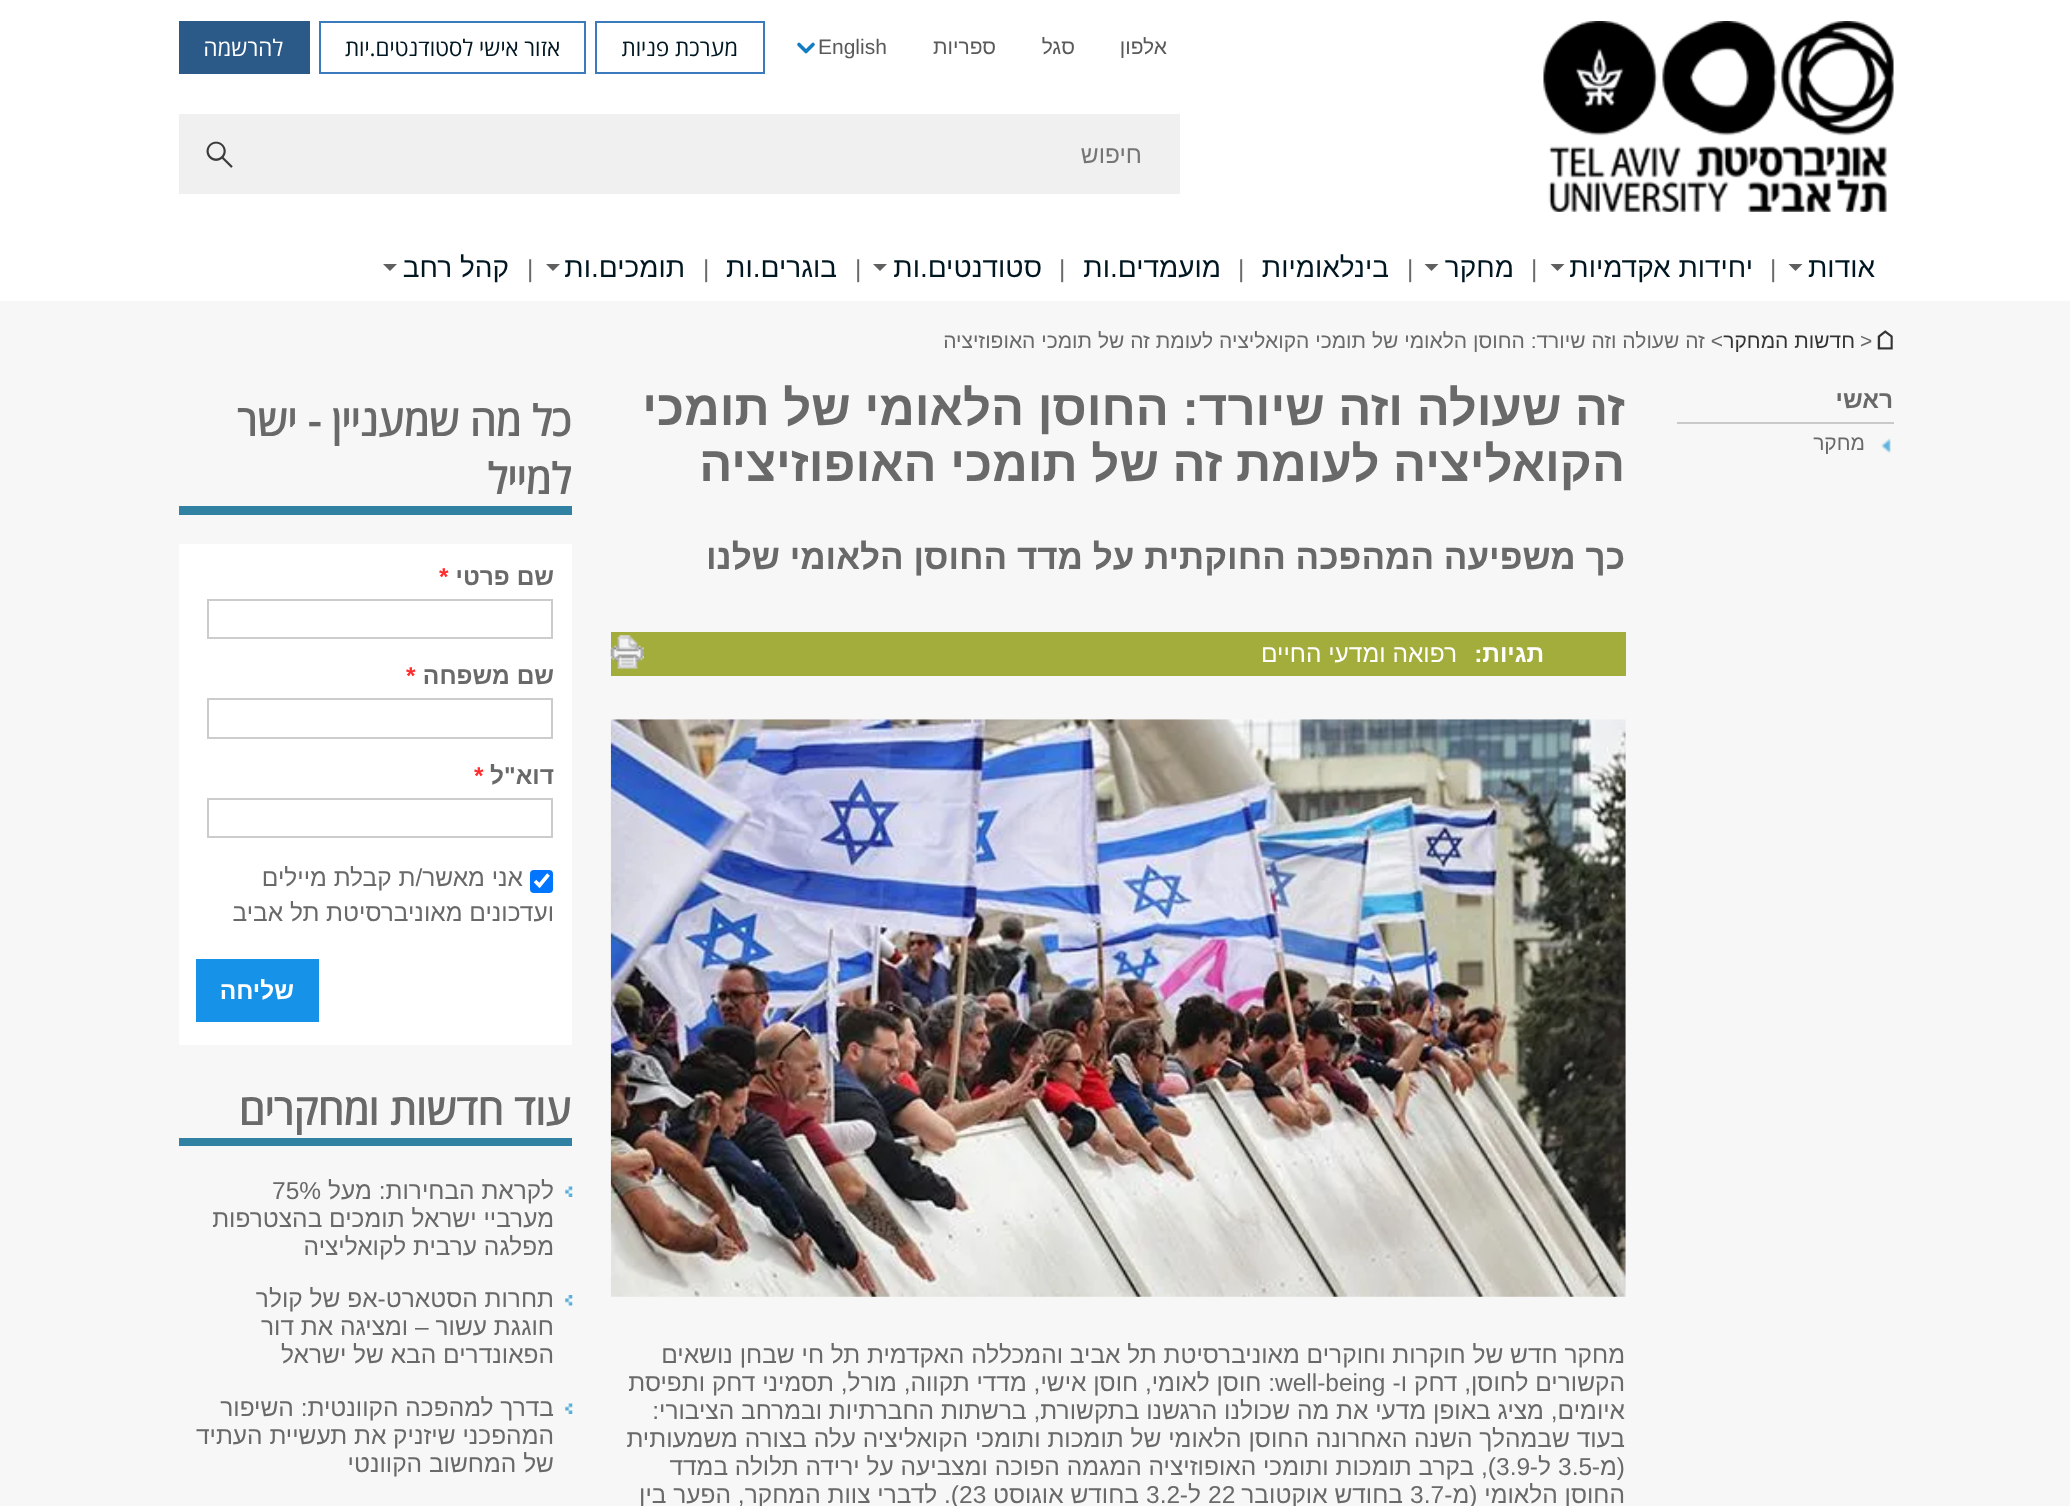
(async () => {
const canvas = document.querySelector("canvas")
canvas.width = 2070
canvas.height = 1506
const c = canvas.getContext("2d")
c.miterLimit = 4
c.fontKerning = "normal"
function T(s,x,y){c.fillText(s,x,y)}
function R(x,y,w,h){c.fillRect(x,y,w,h)}
function Q(x,y,w,h,r){c.beginPath();c.roundRect(x,y,w,h,r);c.fill()}
async function I(src,x,y,w,h){const img=new Image();img.src=src;await img.decode();c.drawImage(img,x,y,w,h)}
let path
c.fillStyle="#f7f7f7"
R(0,0,2070,1506)
c.fillStyle="#fff"
R(0,0,2070,301)
await I("1.png",1543,21,351,191)
c.direction="rtl"
c.font="21px Liberation Sans"
c.fillStyle="#595959"
T("אלפון",1167,54)
T("סגל",1075,54)
T("ספריות",996,54)
c.direction="ltr"
T("English",818,54)
path = new Path2D("M813 44.5l-7 7m-7-7l7 7")
c.strokeStyle="#147cc2"
c.lineWidth=3.6
c.lineCap="round"
c.stroke(path)
c.strokeStyle="#3b7bbd"
c.lineWidth=2
c.strokeRect(596,22,168,51)
c.direction="rtl"
c.font="22.75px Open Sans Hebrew"
c.fillStyle="#001721"
T("מערכת פניות",738,56)
c.strokeRect(320,22,265,51)
T("אזור אישי לסטודנטים.יות",560,56)
c.fillStyle="#2b5988"
R(179,21,131,53)
c.fillStyle="#fff"
T("להרשמה",283,56)
c.fillStyle="#f0f0f0"
R(179,114,1001,80)
c.font="24.5px Liberation Sans"
c.fillStyle="#757575"
T("חיפוש",1142,163)
await I("2.png",206,141,27,27)
c.font="28px Liberation Sans"
c.fillStyle="#001721"
T("אודות",1875,277)
c.fillStyle="#606060"
path = new Path2D("M1788.5 264h14l-7 7z")
c.fill(path)
c.direction="ltr"
c.font="24.5px Liberation Sans"
c.fillStyle="#696969"
T("|",1770,277)
c.direction="rtl"
c.font="28px Liberation Sans"
c.fillStyle="#001721"
T("יחידות אקדמיות",1753,277)
c.fillStyle="#606060"
path = new Path2D("M1550.5 264h14l-7 7z")
c.fill(path)
c.direction="ltr"
c.font="24.5px Liberation Sans"
c.fillStyle="#696969"
T("|",1531,277)
c.direction="rtl"
c.font="28px Liberation Sans"
c.fillStyle="#001721"
T("מחקר",1514,277)
c.fillStyle="#606060"
path = new Path2D("M1424.5 264h14l-7 7z")
c.fill(path)
c.direction="ltr"
c.font="24.5px Liberation Sans"
c.fillStyle="#696969"
T("|",1407,277)
c.direction="rtl"
c.font="28px Liberation Sans"
c.fillStyle="#001721"
T("בינלאומיות",1389,277)
c.direction="ltr"
c.font="24.5px Liberation Sans"
c.fillStyle="#696969"
T("|",1238,277)
c.direction="rtl"
c.font="28px Liberation Sans"
c.fillStyle="#001721"
T("מועמדים.ות",1221,277)
c.direction="ltr"
c.font="24.5px Liberation Sans"
c.fillStyle="#696969"
T("|",1059,277)
c.direction="rtl"
c.font="28px Liberation Sans"
c.fillStyle="#001721"
T("סטודנטים.ות",1042,277)
c.fillStyle="#606060"
path = new Path2D("M873 264h14l-7 7z")
c.fill(path)
c.direction="ltr"
c.font="24.5px Liberation Sans"
c.fillStyle="#696969"
T("|",855,277)
c.direction="rtl"
c.font="28px Liberation Sans"
c.fillStyle="#001721"
T("בוגרים.ות",837,277)
c.direction="ltr"
c.font="24.5px Liberation Sans"
c.fillStyle="#696969"
T("|",703,277)
c.direction="rtl"
c.font="28px Liberation Sans"
c.fillStyle="#001721"
T("תומכים.ות",685,277)
c.fillStyle="#606060"
path = new Path2D("M546 264h14l-7 7z")
c.fill(path)
c.direction="ltr"
c.font="24.5px Liberation Sans"
c.fillStyle="#696969"
T("|",527,277)
c.direction="rtl"
c.font="28px Liberation Sans"
c.fillStyle="#001721"
T("קהל רחב",509,277)
c.fillStyle="#606060"
path = new Path2D("M383 264h14l-7 7z")
c.fill(path)
await I("3.png",1877,330,16,20)
c.direction="ltr"
c.font="21px Liberation Sans"
c.fillStyle="#696969"
T(">",1860,348)
c.direction="rtl"
c.fillStyle="#333"
T("חדשות המחקר",1855,348)
c.fillStyle="#696969"
T("> זה שעולה וזה שיורד: החוסן הלאומי של תומכי הקואליציה לעומת זה של תומכי האופוזיציה",1723,348)
c.font="bold 24.5px Liberation Sans"
T("ראשי",1893,408)
c.fillStyle="#cac9c9"
R(1677,422,217,2)
await I("4.png",1881,438,10,16)
c.font="21px Liberation Sans"
c.fillStyle="#696969"
T("מחקר",1865,450)
c.font="bold 49px Liberation Sans"
T("זה שעולה וזה שיורד: החוסן הלאומי של תומכי",1625,425)
T("הקואליציה לעומת זה של תומכי האופוזיציה",1625,481)
c.font="bold 35px Liberation Sans"
T("כך משפיעה המהפכה החוקתית על מדד החוסן הלאומי שלנו",1625,569)
c.fillStyle="#a3ad3c"
R(611,632,1015,44)
c.font="bold 24.5px Liberation Sans"
c.fillStyle="#fff"
T("תגיות:",1544,662)
c.font="24.5px Liberation Sans"
T("רפואה ומדעי החיים",1457,662)
await I("5.png",610,635,34,34)
await I("6.png",610,719,1016,578)
c.fillStyle="#696969"
T("מחקר חדש של חוקרות וחוקרים מאוניברסיטת תל אביב והמכללה האקדמית תל חי שבחן נושאים",1625,1363)
T("הקשורים לחוסן, דחק ו-",1625,1391)
c.direction="ltr"
T("well-being",1275,1391)
c.direction="rtl"
T(": חוסן לאומי, חוסן אישי, מדדי תקווה, מורל, תסמיני דחק ותפיסת",1275,1391)
T("איומים, מציג באופן מדעי את מה שכולנו הרגשנו בתקשורת, ברשתות החברתיות ובמרחב הציבורי:",1625,1419)
T("בעוד שבמהלך השנה האחרונה החוסן הלאומי של תומכות ותומכי הקואליציה עלה בצורה משמעותית",1625,1447)
T("(מ-",1625,1475)
c.direction="ltr"
T("3.5",1558,1475)
c.direction="rtl"
T("ל-",1551,1475)
c.direction="ltr"
T("3.9",1496,1475)
c.direction="rtl"
T("), בקרב תומכות ותומכי האופוזיציה המגמה הפוכה ומצביעה על ירידה תלולה במדד",1496,1475)
T("החוסן הלאומי (מ-",1625,1503)
c.direction="ltr"
T("3.7",1410,1503)
c.direction="rtl"
T("בחודש אוקטובר",1403,1503)
c.direction="ltr"
T("22",1208,1503)
c.direction="rtl"
T("ל-",1201,1503)
c.direction="ltr"
T("3.2",1146,1503)
c.direction="rtl"
T("בחודש אוגוסט",1139,1503)
c.direction="ltr"
T("23",959,1503)
c.direction="rtl"
T("). לדברי צוות המחקר, הפער בין",959,1503)
c.font="bold 42px Open Sans Hebrew"
T("כל מה שמעניין - ישר",571,436)
T("למייל",571,494)
c.fillStyle="#3181a2"
R(179,506,393,9)
c.fillStyle="#fff"
R(179,544,393,501)
c.font="bold 24.5px Liberation Sans"
c.fillStyle="#696969"
T("שם פרטי",554,585)
c.direction="ltr"
c.fillStyle="#ff2d2e"
T("*",439,585)
c.strokeStyle="#ccc"
c.strokeRect(208,600,344,38)
c.direction="rtl"
c.fillStyle="#696969"
T("שם משפחה",554,684)
c.direction="ltr"
c.fillStyle="#ff2d2e"
T("*",406,684)
c.strokeRect(208,699,344,39)
c.direction="rtl"
c.fillStyle="#696969"
T("דוא\"ל",554,784)
c.direction="ltr"
c.fillStyle="#ff2d2e"
T("*",474,784)
c.strokeRect(208,799,344,38)
c.fillStyle="#0075ff"
Q(530,870,23,23,4)
path = new Path2D("M535 881l4.5 4.5l9-11")
c.strokeStyle="#fff"
c.lineWidth=3.6
c.lineCap="butt"
c.stroke(path)
c.direction="rtl"
c.font="24.5px Liberation Sans"
c.fillStyle="#696969"
T("אני מאשר/ת קבלת מיילים",523,886)
T("ועדכונים מאוניברסיטת תל אביב",554,921)
c.fillStyle="#1692e8"
R(196,959,123,63)
c.font="bold 24.5px Liberation Sans"
c.fillStyle="#fff"
T("שליחה",294,999)
c.font="bold 42px Open Sans Hebrew"
c.fillStyle="#696969"
T("עוד חדשות ומחקרים",571,1125)
c.fillStyle="#3181a2"
R(179,1138,393,8)
await I("7.png",565,1186,8,11)
c.font="24.5px Liberation Sans"
c.fillStyle="#696969"
T("לקראת הבחירות: מעל",554,1199)
c.direction="ltr"
T("75%",272,1199)
c.direction="rtl"
T("מערביי ישראל תומכים בהצטרפות",554,1227)
T("מפלגה ערבית לקואליציה",554,1255)
await I("8.png",565,1295,8,11)
T("תחרות הסטארט-אפ של קולר",554,1307)
T("חוגגת עשור – ומציגה את דור",554,1335)
T("הפאונדרים הבא של ישראל",554,1363)
await I("7.png",565,1403,8,11)
T("בדרך למהפכה הקוונטית: השיפור",554,1416)
T("המהפכני שיזניק את תעשיית העתיד",554,1444)
T("של המחשוב הקוונטי",554,1472)
})()
